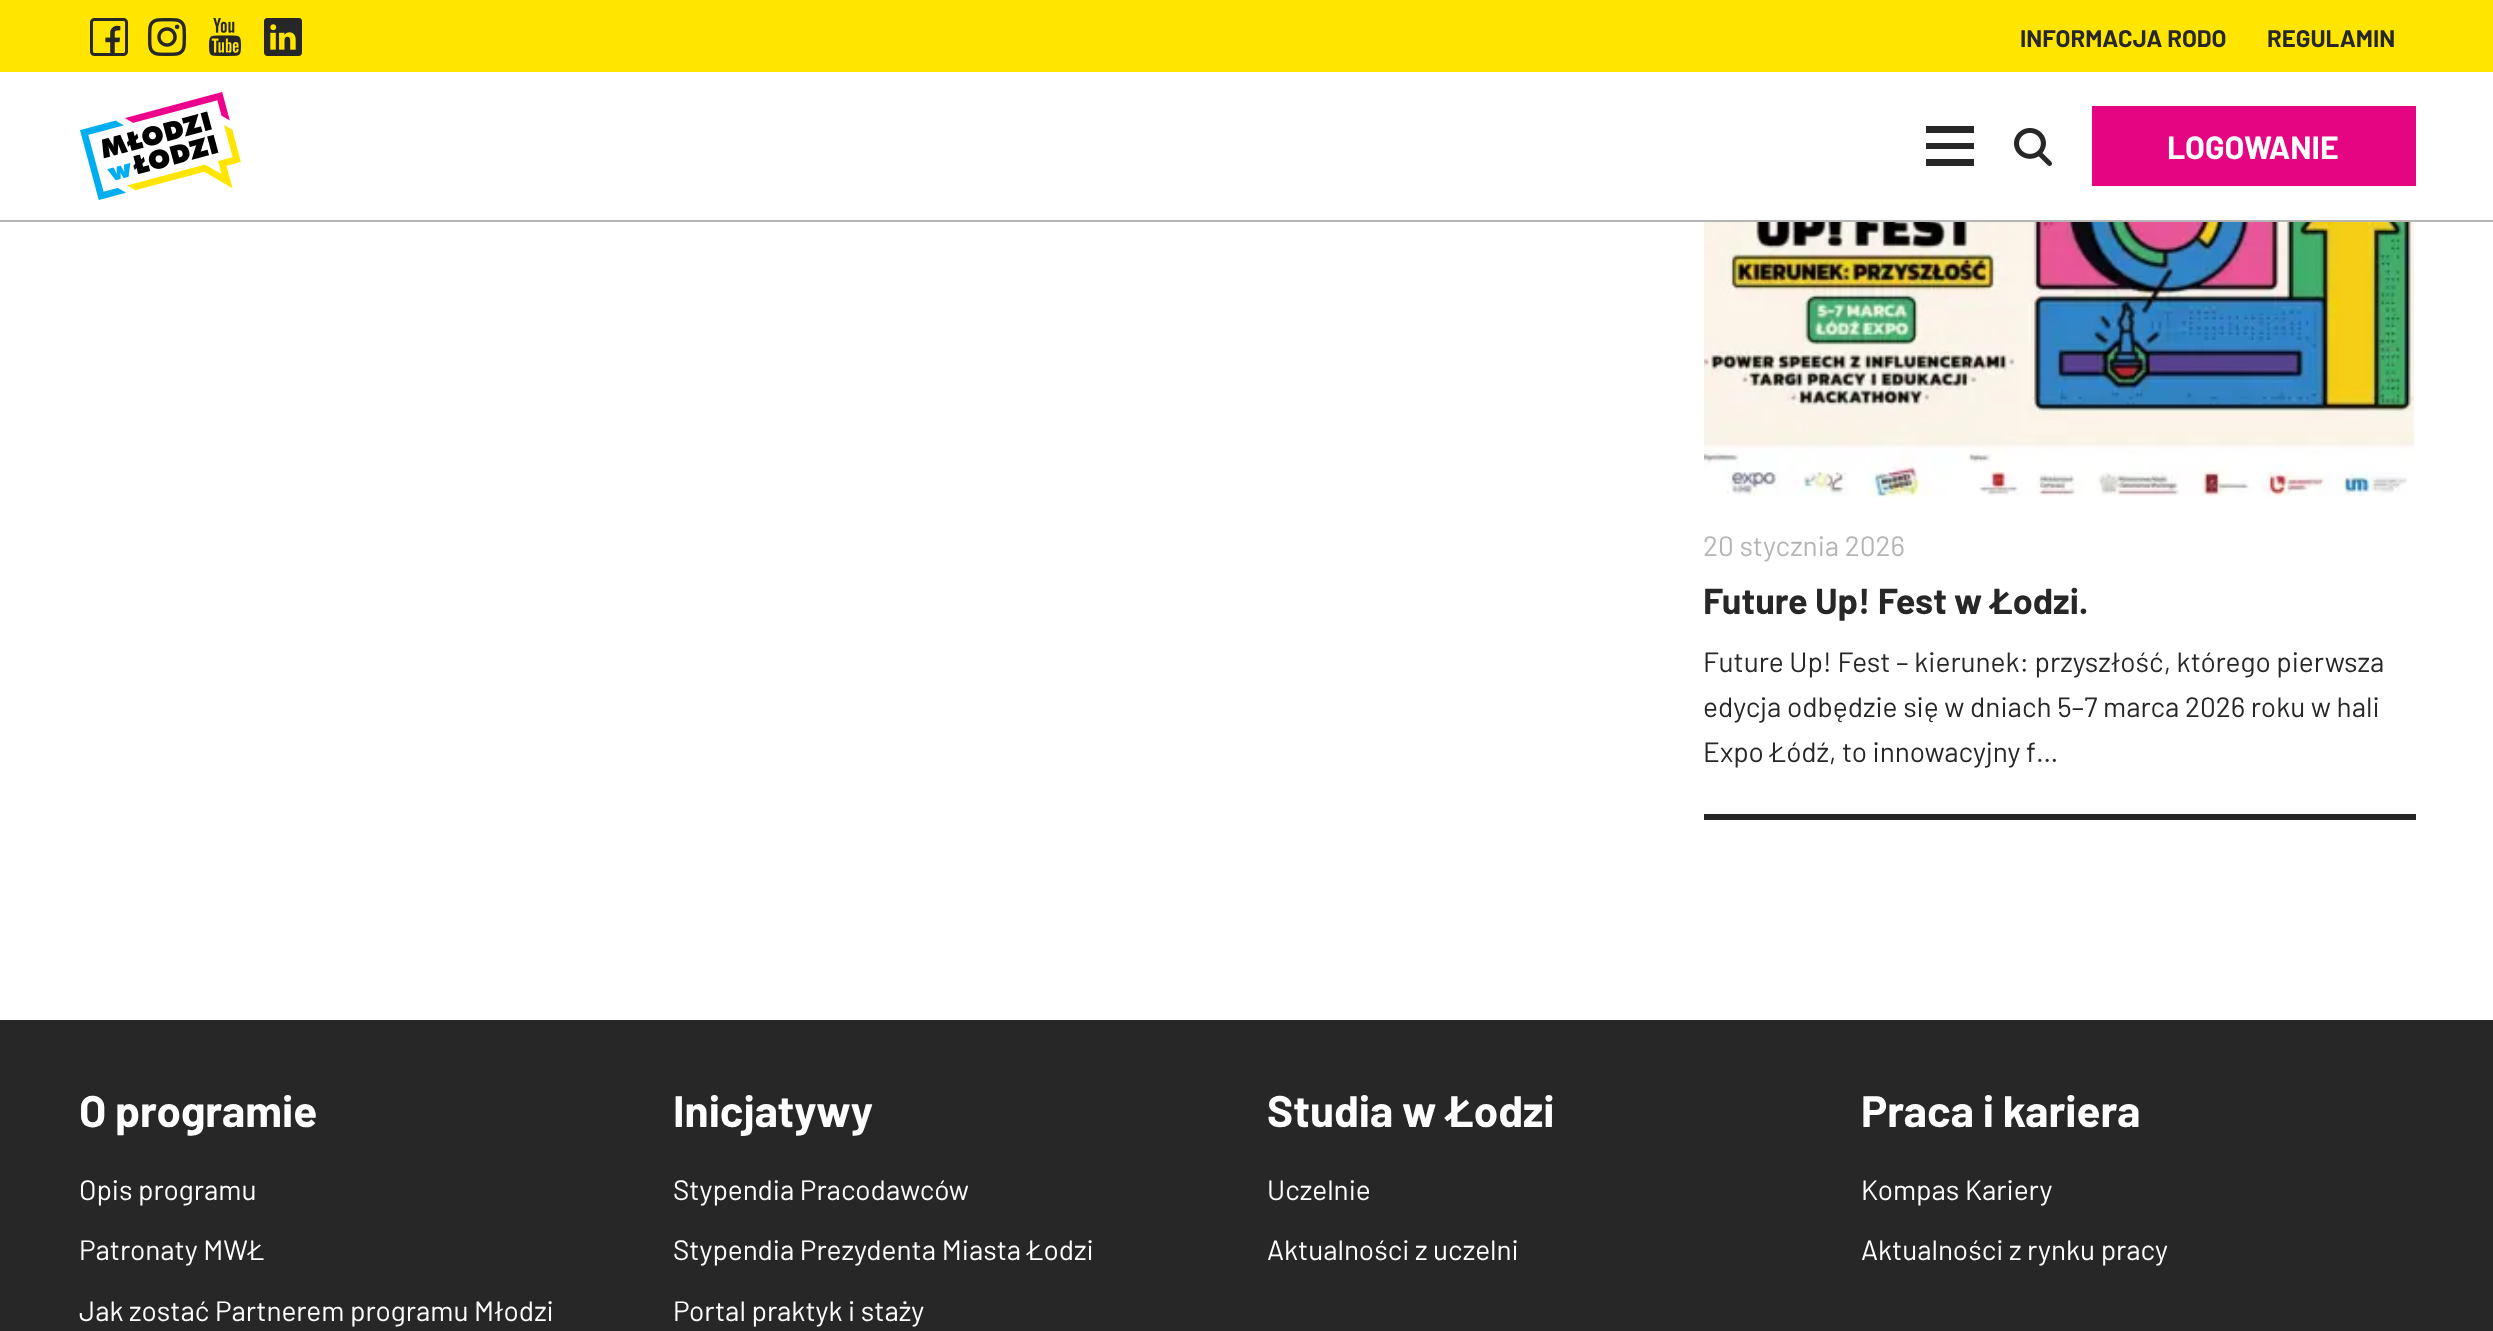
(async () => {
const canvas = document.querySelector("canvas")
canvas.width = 2493
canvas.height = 1331
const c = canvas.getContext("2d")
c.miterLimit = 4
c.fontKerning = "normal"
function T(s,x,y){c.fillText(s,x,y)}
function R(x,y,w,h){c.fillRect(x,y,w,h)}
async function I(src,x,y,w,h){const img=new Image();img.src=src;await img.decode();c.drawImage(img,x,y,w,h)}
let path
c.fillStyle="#fff"
R(0,0,2493,1331)
c.fillStyle="#ffe500"
R(0,0,2493,72)
await I("1.png",90,18,38,38)
await I("2.png",148,18,38,38)
await I("3.png",209,18,32,38)
await I("4.png",264,18,38,38)
c.font="bold 24px Barlow"
c.fillStyle="#272727"
T("INFORMACJA RODO",2020,47)
T("REGULAMIN",2267,47)
c.fillStyle="#b5b5b5"
R(0,220,2493,2)
await I("5.png",80,92,161,108)
c.fillStyle="#272727"
path = new Path2D("M1926 126v7h48v-7zm0 17v6h48v-6zm0 16v7h48v-7z")
c.fill(path)
await I("6.png",2014,128,38,38)
c.fillStyle="#e50481"
R(2092,106,324,80)
c.font="bold 32px Barlow"
c.fillStyle="#fff"
T("LOGOWANIE",2167,159)
await I("7.png",1704,222,710,276)
c.font="28px Barlow"
c.fillStyle="#b5b5b5"
T("20 stycznia 2026",1703,556)
c.font="bold 36px Barlow"
c.fillStyle="#272727"
T("Future Up! Fest w Łodzi.",1703,614)
R(1704,814,712,6)
c.font="28px Barlow"
T("Future Up! Fest – kierunek: przyszłość, którego pierwsza",1703,672)
T("edycja odbędzie się w dniach 5–7 marca 2026 roku w hali",1703,717)
T("Expo Łódź, to innowacyjny f…",1703,762)
R(0,1020,2493,311)
c.font="bold 44px Barlow"
c.fillStyle="#fff"
T("O programie",79,1127)
c.font="28px Barlow"
T("Opis programu",79,1200)
T("Patronaty MWŁ",79,1260)
T("Jak zostać Partnerem programu Młodzi",79,1321)
c.font="bold 44px Barlow"
T("Inicjatywy",673,1127)
c.font="28px Barlow"
T("Stypendia Pracodawców",673,1200)
T("Stypendia Prezydenta Miasta Łodzi",673,1260)
T("Portal praktyk i staży",673,1321)
c.font="bold 44px Barlow"
T("Studia w Łodzi",1267,1127)
c.font="28px Barlow"
T("Uczelnie",1267,1200)
T("Aktualności z uczelni",1267,1260)
c.font="bold 44px Barlow"
T("Praca i kariera",1861,1127)
c.font="28px Barlow"
T("Kompas Kariery",1861,1200)
T("Aktualności z rynku pracy",1861,1260)
})()
